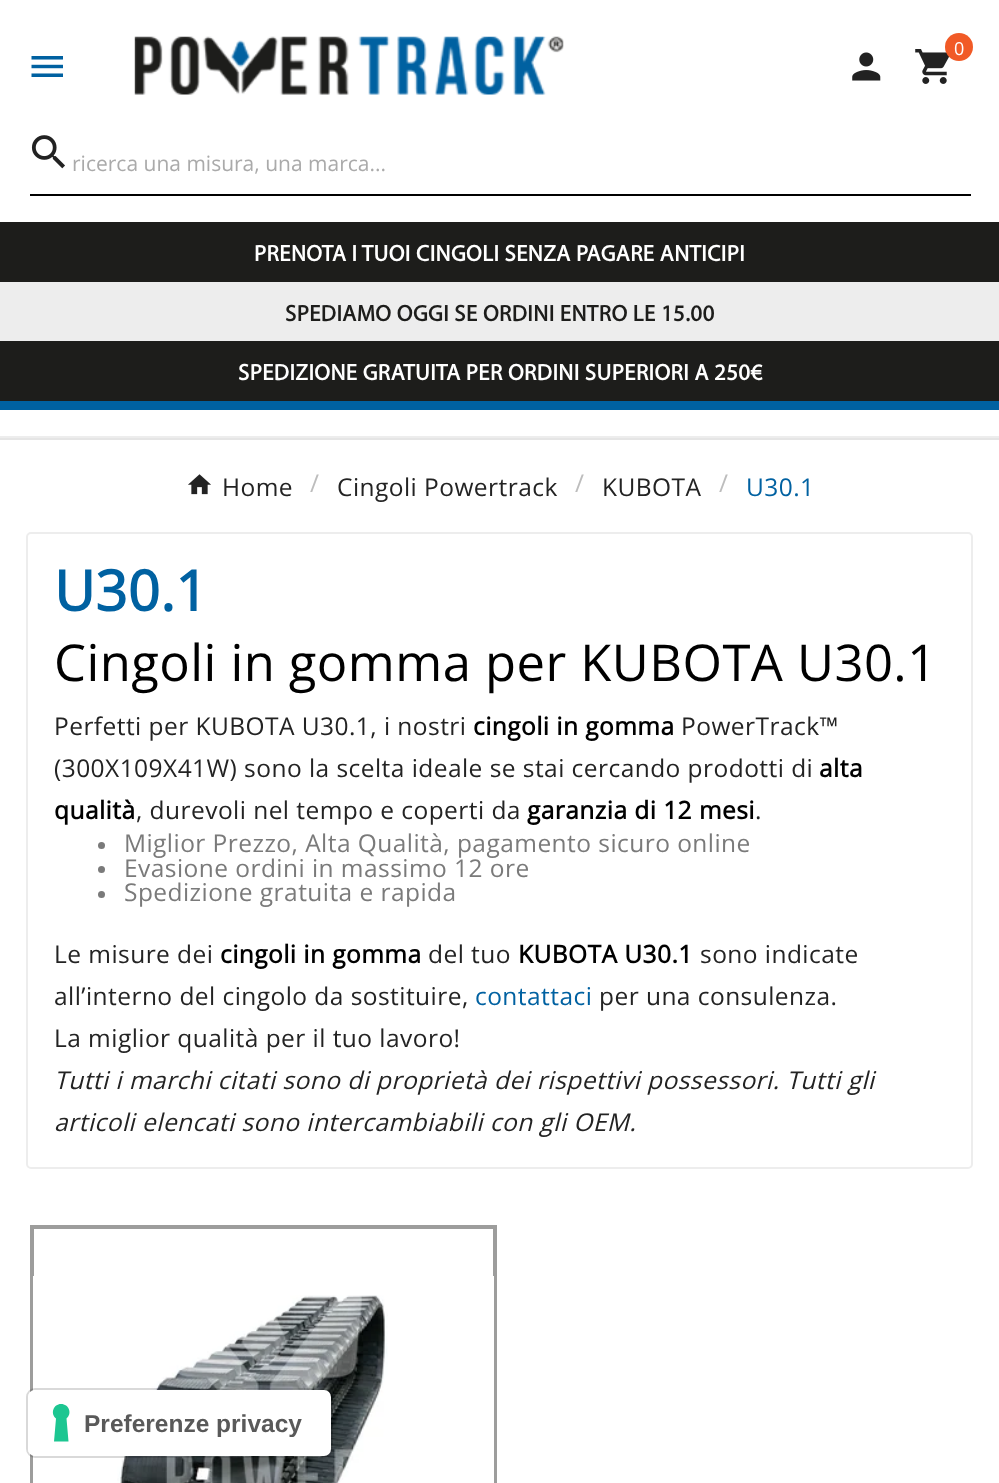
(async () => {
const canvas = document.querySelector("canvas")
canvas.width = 999
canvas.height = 1483
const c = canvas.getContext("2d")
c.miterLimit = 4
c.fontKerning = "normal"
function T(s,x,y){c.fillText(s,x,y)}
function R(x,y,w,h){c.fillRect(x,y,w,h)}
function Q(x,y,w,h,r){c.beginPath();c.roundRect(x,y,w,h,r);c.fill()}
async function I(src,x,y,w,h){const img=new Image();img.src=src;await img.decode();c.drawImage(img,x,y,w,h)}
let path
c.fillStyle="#fff"
R(0,0,999,1483)
c.fillStyle="#e5e5e5"
R(0,438,999,2)
c.fillStyle="#ededed"
R(0,436,999,2)
await I("1.png",134,36,430,59)
await I("2.png",915,49,35,35)
c.fillStyle="#f15a26"
c.beginPath()
c.arc(959,47,14,0,7)
c.fill()
c.letterSpacing="0.45px"
c.font="18px Open Sans"
c.fillStyle="#fff"
T("0",954,55)
await I("3.png",852,52,29,29)
await I("4.png",31,56,32,21)
c.fillStyle="#000"
R(30,194,941,2)
await I("5.png",31,135,34,34)
c.letterSpacing="0px"
c.font="21px Open Sans"
c.fillStyle="#aaa"
T("ricerca una misura, una marca...",72,171)
c.fillStyle="#0061a1"
R(0,401,999,9)
c.fillStyle="#1d1d1b"
R(0,222,999,60)
c.letterSpacing="0.45px"
c.font="bold 22.75px Myriad"
c.fillStyle="#fff"
T("PRENOTA I TUOI CINGOLI SENZA PAGARE ANTICIPI",254,261)
c.fillStyle="#ededed"
R(0,282,999,59)
c.fillStyle="#1d1d1b"
T("SPEDIAMO OGGI SE ORDINI ENTRO LE 15.00",285,321)
R(0,341,999,60)
c.fillStyle="#fff"
T("SPEDIZIONE GRATUITA PER ORDINI SUPERIORI A 250€",238,380)
await I("6.png",188,474,23,21)
c.font="24.5px Open Sans"
c.fillStyle="#232323"
T("Home",222,496)
c.fillStyle="#bdbdbd"
T("/",310,492)
c.fillStyle="#232323"
T("Cingoli Powertrack",337,496)
c.fillStyle="#bdbdbd"
T("/",575,492)
c.fillStyle="#232323"
T("KUBOTA",602,496)
c.fillStyle="#bdbdbd"
T("/",719,492)
c.fillStyle="#0061a1"
T("U30.1",746,496)
c.beginPath()
c.roundRect(27,533,945,635,4)
c.strokeStyle="#ededed"
c.lineWidth=2
c.stroke()
c.font="bold 56px Open Sans"
T("U30.1",54,611)
c.font="50.75px Open Sans"
c.fillStyle="#000"
T("Cingoli in gomma per KUBOTA U30.1",54,681)
c.font="24.5px Open Sans"
c.fillStyle="#232323"
T("Perfetti per KUBOTA U30.1, i nostri",54,735)
c.font="bold 24.5px Open Sans"
c.fillStyle="#000"
T("cingoli in gomma",473,735)
c.font="24.5px Open Sans"
c.fillStyle="#232323"
T("PowerTrack™",681,735)
T("(300X109X41W) sono la scelta ideale se stai cercando prodotti di",54,777)
c.font="bold 24.5px Open Sans"
c.fillStyle="#000"
T("alta",819,777)
T("qualità",54,819)
c.font="24.5px Open Sans"
c.fillStyle="#232323"
T(", durevoli nel tempo e coperti da",136,819)
c.font="bold 24.5px Open Sans"
c.fillStyle="#000"
T("garanzia di 12 mesi",527,819)
c.font="24.5px Open Sans"
c.fillStyle="#232323"
T(".",755,819)
c.fillStyle="#7a7a7a"
c.beginPath()
c.arc(101.5,845.5,3.5,0,7)
c.fill()
T("Miglior Prezzo, Alta Qualità, pagamento sicuro online",124,852)
c.beginPath()
c.arc(101.5,869.5,3.5,0,7)
c.fill()
T("Evasione ordini in massimo 12 ore",124,877)
c.beginPath()
c.arc(101.5,894.5,3.5,0,7)
c.fill()
T("Spedizione gratuita e rapida",124,901)
c.fillStyle="#232323"
T("Le misure dei",54,963)
c.font="bold 24.5px Open Sans"
c.fillStyle="#000"
T("cingoli in gomma",220,963)
c.font="24.5px Open Sans"
c.fillStyle="#232323"
T("del tuo",428,963)
c.font="bold 24.5px Open Sans"
c.fillStyle="#000"
T("KUBOTA U30.1",518,963)
c.font="24.5px Open Sans"
c.fillStyle="#232323"
T("sono indicate",700,963)
T("all’interno del cingolo da sostituire,",54,1005)
c.fillStyle="#0061a1"
T("contattaci",475,1005)
c.fillStyle="#232323"
T("per una consulenza.",599,1005)
T("La miglior qualità per il tuo lavoro!",54,1047)
c.font="italic 24.5px Open Sans"
T("Tutti i marchi citati sono di proprietà dei rispettivi possessori. Tutti gli",54,1089)
T("articoli elencati sono intercambiabili con gli OEM.",54,1131)
c.strokeStyle="#9d9d9c"
c.lineWidth=4
c.strokeRect(32,1227,463,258)
c.fillStyle="#fff"
R(33,1276,461,207)
await I("7.png",117,1295,271,188)
c.beginPath()
c.roundRect(27,1389,305,68,8)
c.strokeStyle="#00000026"
c.lineWidth=2
c.stroke()
Q(28,1390,303,66,7)
c.fillStyle="#1cc691"
path = new Path2D("M61 1404c8 0 11.5 9.5 5.5 14.5l2 23h-14.5l2-23c-6-5-2.5-14.5 5-14.5z")
c.fill(path,"evenodd")
c.letterSpacing="0px"
c.font="bold 24.5px Liberation Sans"
c.fillStyle="#595959"
T("Preferenze privacy",84,1432)
})()
